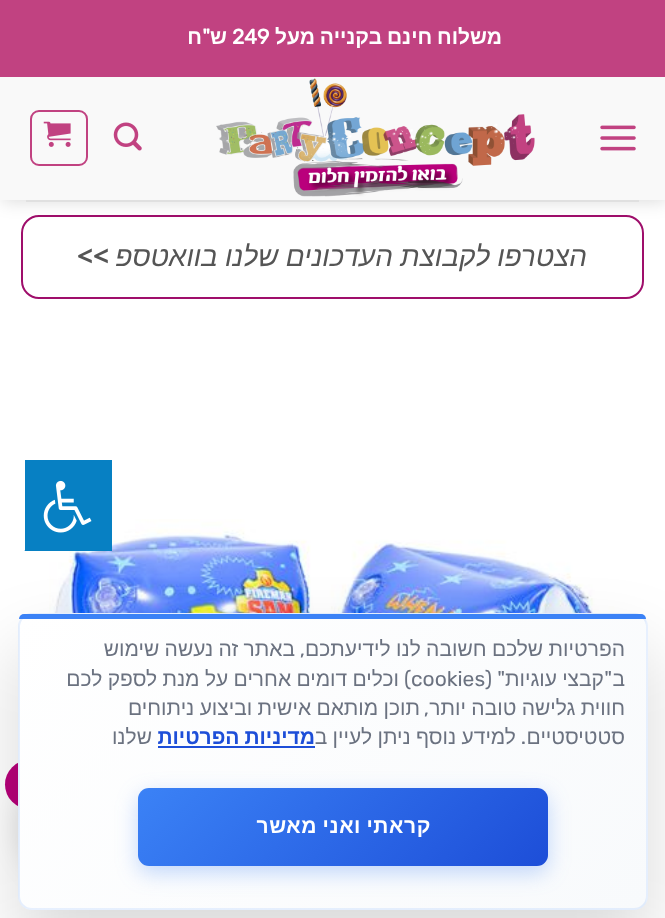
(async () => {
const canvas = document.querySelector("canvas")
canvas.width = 665
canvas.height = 918
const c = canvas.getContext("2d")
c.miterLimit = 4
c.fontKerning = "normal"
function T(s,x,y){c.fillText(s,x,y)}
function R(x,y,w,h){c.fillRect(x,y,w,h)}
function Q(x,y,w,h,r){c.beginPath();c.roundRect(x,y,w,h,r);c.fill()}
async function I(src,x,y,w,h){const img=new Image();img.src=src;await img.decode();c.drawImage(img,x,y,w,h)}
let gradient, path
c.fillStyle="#fff"
R(0,0,665,918)
c.beginPath()
c.roundRect(22,216,621,82,17)
c.strokeStyle="#9f0e6b"
c.lineWidth=2
c.stroke()
c.fillStyle="#00000026"
c.filter="blur(9px)"
c.beginPath()
c.rect(2,2,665,199)
c.fill()
c.filter="none"
c.fillStyle="#c14281"
R(0,0,665,77)
c.wordSpacing="-1px"
c.direction="rtl"
c.font="bold 21px Liberation Sans"
c.fillStyle="#fff"
T("משלוח חינם בקנייה מעל",502,44)
c.wordSpacing="0px"
c.direction="ltr"
c.font="bold 21px Rubik"
T("249",232,44)
c.direction="rtl"
c.font="bold 21px Liberation Sans"
T("ש",227,44)
c.font="bold 21px Rubik"
T("\"",210,44)
c.font="bold 21px Liberation Sans"
T("ח",202,44)
c.fillStyle="#f9f9f9"
R(0,77,665,123)
await I("1.png",600,125,36,26)
await I("2.png",216,78,319,119)
await I("3.png",113,122,29,29)
c.beginPath()
c.roundRect(31,111,56,54,8)
c.strokeStyle="#c14281"
c.stroke()
await I("4.png",43,121,28,26)
c.fillStyle="#e0e0e0"
R(26,200,613,2)
c.wordSpacing="-0.5px"
c.font="italic 28px Liberation Sans"
c.fillStyle="#555"
T("הצטרפו לקבוצת העדכונים שלנו בוואטספ",587,266)
c.wordSpacing="0px"
c.font="bold 28px Open Sans"
T(">>",109,266)
await I("5.png",49,519,586,95)
c.fillStyle="#0780c3"
R(25,460,87,91)
path = new Path2D("M112 551h-88l2-1h84z")
c.fill(path)
await I("6.png",43,480,49,53)
c.fillStyle="#0000001a"
c.filter="blur(13px)"
c.beginPath()
c.roundRect(16,772,112,112,56)
c.fill()
c.filter="none"
c.fillStyle="#b7007a"
c.beginPath()
c.arc(29.5,784.5,24.5,0,7)
c.fill()
c.fillStyle="#00000026"
c.filter="blur(35px)"
c.beginPath()
c.roundRect(18,648,630,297,14)
c.fill()
c.filter="none"
c.save()
c.beginPath()
c.roundRect(18,613,630,297,14)
c.clip()
gradient = c.createLinearGradient(102,237,563,697)
gradient.addColorStop(0,"#fff")
gradient.addColorStop(1,"#f8fafc")
c.fillStyle = gradient
R(19,613,627,1)
gradient = c.createLinearGradient(-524,531,-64,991)
gradient.addColorStop(0,"#fff")
gradient.addColorStop(1,"#f8fafc")
c.fillStyle = gradient
R(18,614,1,294)
gradient = c.createLinearGradient(102,531,563,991)
gradient.addColorStop(0,"#fff")
gradient.addColorStop(1,"#f8fafc")
c.fillStyle = gradient
R(19,618,627,290)
gradient = c.createLinearGradient(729,531,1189,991)
gradient.addColorStop(0,"#fff")
gradient.addColorStop(1,"#f8fafc")
c.fillStyle = gradient
R(646,614,2,294)
gradient = c.createLinearGradient(102,825,563,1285)
gradient.addColorStop(0,"#fff")
gradient.addColorStop(1,"#f8fafc")
c.fillStyle = gradient
R(19,908,627,2)
c.restore()
c.beginPath()
c.roundRect(19,614,628,295,13)
c.strokeStyle="#3b82f61f"
c.stroke()
c.fillStyle="#3b82f6"
c.beginPath()
c.roundRect(19,614,627,5,[5,5,0,0])
c.fill()
c.wordSpacing="-0.5px"
c.font="21px Liberation Sans"
c.fillStyle="#6b7280"
T("הפרטיות שלכם חשובה לנו לידיעתכם",625,656)
c.wordSpacing="0px"
c.font="21px Rubik"
T(",",305,656)
c.wordSpacing="-0.5px"
c.font="21px Liberation Sans"
T("באתר זה נעשה שימוש",295,656)
c.wordSpacing="0px"
T("ב",625,686)
c.font="21px Rubik"
T("\"",612,686)
c.font="21px Liberation Sans"
T("קבצי",604,686)
T("עוגיות",557,686)
c.font="21px Rubik"
T("\" (",505,686)
c.direction="ltr"
T("cookies",411,686)
c.direction="rtl"
T(")",411,686)
c.wordSpacing="-0.5px"
c.font="21px Liberation Sans"
T("וכלים דומים אחרים על מנת לספק לכם",399,686)
T("חווית גלישה טובה יותר",625,715)
c.wordSpacing="0px"
c.font="21px Rubik"
T(",",429,715)
c.wordSpacing="-0.5px"
c.font="21px Liberation Sans"
T("תוכן מותאם אישית וביצוע ניתוחים",420,715)
c.wordSpacing="0px"
T("סטטיסטיים",625,744)
c.font="21px Rubik"
T(".",526,744)
c.wordSpacing="-0.5px"
c.font="21px Liberation Sans"
T("למידע נוסף ניתן לעיין ב",516,744)
c.wordSpacing="-1px"
c.font="bold 21px Liberation Sans"
c.fillStyle="#1d4ed8"
T("מדיניות הפרטיות",315,744)
R(158,746,157,2)
c.wordSpacing="0px"
c.font="21px Liberation Sans"
c.fillStyle="#6b7280"
T("שלנו",152,744)
c.fillStyle="#3b82f64d"
c.filter="blur(10.5px)"
c.beginPath()
c.roundRect(138,795,410,78,11)
c.fill()
c.filter="none"
gradient = c.createLinearGradient(221,705,465,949)
gradient.addColorStop(0,"#3b82f6")
gradient.addColorStop(1,"#1d4ed8")
c.fillStyle = gradient
Q(138,788,410,78,11)
c.letterSpacing="0.6px"
c.wordSpacing="-1px"
c.font="bold 21px Liberation Sans"
c.fillStyle="#fff"
T("קראתי ואני מאשר",431,833)
})()
